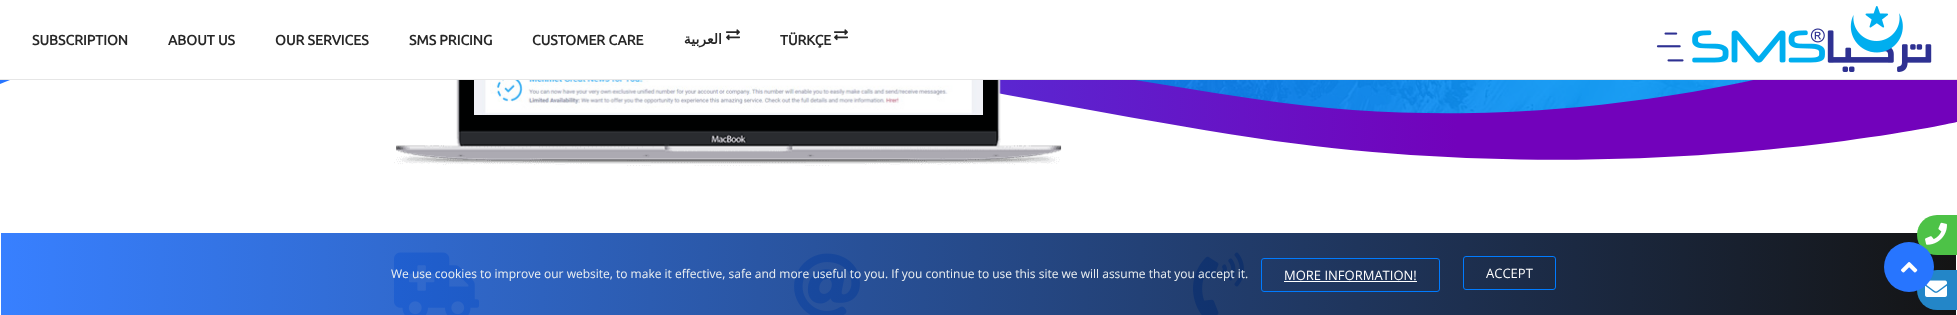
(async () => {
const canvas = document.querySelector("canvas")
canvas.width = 1957
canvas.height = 315
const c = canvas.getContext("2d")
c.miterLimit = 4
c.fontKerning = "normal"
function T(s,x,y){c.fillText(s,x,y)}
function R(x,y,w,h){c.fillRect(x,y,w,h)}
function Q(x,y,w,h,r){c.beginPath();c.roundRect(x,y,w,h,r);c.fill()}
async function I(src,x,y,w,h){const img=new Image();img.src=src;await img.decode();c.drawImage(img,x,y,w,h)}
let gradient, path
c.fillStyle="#fff"
R(0,0,1957,315)
await I("1.png",1135,80,619,34)
c.save()
c.beginPath()
c.rect(0,0,1957,181)
c.clip()
gradient = c.createLinearGradient(0,233,1821,233)
gradient.addColorStop(0,"#2775ff")
gradient.addColorStop(.8,"#7202bb")
c.fillStyle = gradient
path = new Path2D("M1255 99c-262-39-533-99-769-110c-223-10-430 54-486 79v121h1957v-169c0 0-323 137-702 79z")
c.fill(path,"evenodd")
c.fillStyle="#fff"
path = new Path2D("M1957 122c0 0-323 73-702 16c-262-40-535-108-771-119c-223-11-428 41-484 65v105h1957z")
c.fill(path,"evenodd")
c.restore()
await I("2.png",394,80,668,86)
await I("3.png",474,80,509,35)
R(0,0,1957,79)
c.fillStyle="#e6e6e6"
R(0,79,1957,1)
c.font="bold 14px Ubuntu"
c.fillStyle="#272727"
T("SUBSCRIPTION",32,45)
T("ABOUT US",168,45)
T("OUR SERVICES",275,45)
T("SMS PRICING",409,45)
T("CUSTOMER CARE",532,45)
c.direction="rtl"
c.font="bold 14px DejaVu Sans"
T("العربية",722,44)
await I("4.png",726,29,14,12)
c.direction="ltr"
c.font="bold 14px Ubuntu"
T("TÜRKÇE",780,45)
await I("4.png",834,29,14,12)
await I("5.png",1656,6,276,66)
await I("6.png",394,252,85,63)
await I("7.png",794,253,66,62)
await I("8.png",1193,252,51,63)
gradient = c.createLinearGradient(1,274,1956,274)
gradient.addColorStop(0,"#2775ffeb")
gradient.addColorStop(1,"#000000eb")
c.fillStyle = gradient
R(1,233,1955,82)
c.font="12px Open Sans"
c.fillStyle="#ecf0f1"
T("We use cookies to improve our website, to make it effective, safe and more useful to you. If you continue to use this site we will assume that you accept it.",391,278)
c.beginPath()
c.roundRect(1261.5,258.5,178,33,2.5)
c.strokeStyle="#007bff"
c.stroke()
c.font="13px Open Sans"
c.fillStyle="#fff"
T("MORE INFORMATION!",1284,280)
R(1284,281,133,1)
c.beginPath()
c.roundRect(1463.5,256.5,92,33,2.5)
c.stroke()
T("ACCEPT",1486,278)
c.fillStyle="#4dc247"
Q(1917,215,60,40,20)
await I("10.png",1925,222,22,23)
c.fillStyle="#2386c8"
Q(1917,270,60,40,20)
await I("11.png",1925,280,22,17)
c.fillStyle="#2775ff"
c.beginPath()
c.arc(1909,267,25,0,7)
c.fill()
await I("9.png",1901,262,17,11)
})()
